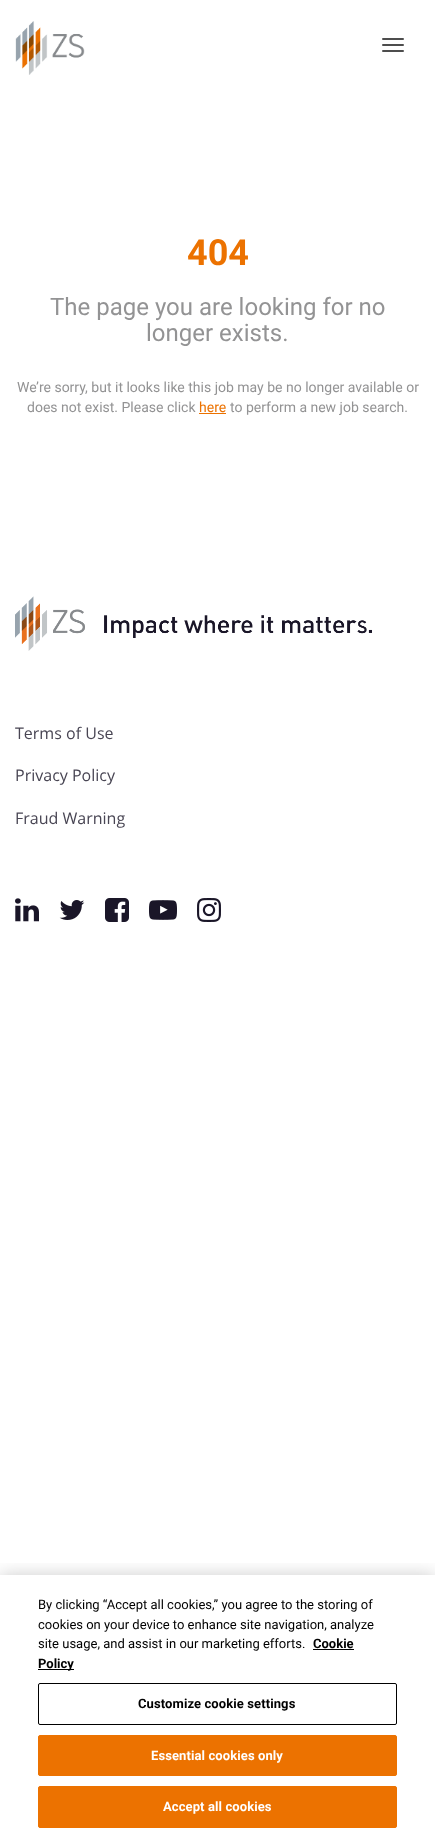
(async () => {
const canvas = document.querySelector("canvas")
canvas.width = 435
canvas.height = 1838
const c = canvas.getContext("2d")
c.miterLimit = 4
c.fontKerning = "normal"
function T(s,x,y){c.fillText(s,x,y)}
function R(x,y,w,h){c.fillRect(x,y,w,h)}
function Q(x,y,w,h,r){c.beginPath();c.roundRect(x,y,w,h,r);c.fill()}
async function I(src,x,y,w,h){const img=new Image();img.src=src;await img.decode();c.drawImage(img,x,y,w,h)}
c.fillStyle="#fff"
R(0,0,435,1838)
await I("1.png",15,21,70,54)
c.fillStyle="#4d4d4d"
Q(382,38,22,2,1)
Q(382,44,22,2,1)
Q(382,50,22,2,1)
c.font="bold 36px Roboto"
c.fillStyle="#ec7200"
T("404",187,265)
c.font="24px Roboto"
c.fillStyle="#939394"
T("The page you are looking for no",50,315)
T("longer exists.",146,341)
c.font="14px Roboto"
T("We’re sorry, but it looks like this job may be no longer available or",17,392)
T("does not exist. Please click",27,412)
c.fillStyle="#ec7200"
T("here",199,412)
R(199,413,27,1)
c.fillStyle="#939394"
T("to perform a new job search.",230,412)
await I("2.png",15,596,357,55)
c.font="16px Open Sans"
c.fillStyle="#484553"
T("Terms of Use",15,739)
T("Privacy Policy",15,781)
T("Fraud Warning",15,824)
await I("3.png",15,898,24,24)
await I("4.png",59,900,26,20)
await I("5.png",105,898,24,24)
await I("6.png",149,900,28,20)
await I("7.png",197,898,24,24)
c.save()
c.beginPath()
c.rect(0,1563,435,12)
c.clip()
c.fillStyle="#00000033"
c.filter="blur(9px)"
c.beginPath()
c.rect(0,1575,435,263)
c.fill()
c.filter="none"
c.restore()
c.font="13px Roboto"
c.fillStyle="#000"
T("By clicking “Accept all cookies,” you agree to the storing of",38,1609)
T("cookies on your device to enhance site navigation, analyze",38,1629)
T("site usage, and assist in our marketing efforts.",38,1648)
c.font="bold 13px Roboto"
T("Cookie",313,1648)
R(313,1649,41,1)
R(38,1669,36,1)
T("Policy",38,1668)
c.beginPath()
c.roundRect(38.5,1683.5,358,41,1.5)
c.strokeStyle="#000"
c.stroke()
c.letterSpacing="0.1px"
T("Customize cookie settings",138,1708)
c.fillStyle="#ec7200"
c.beginPath()
c.roundRect(38.5,1735.5,358,40,1.5)
c.fill()
c.strokeStyle="#ec7200"
c.stroke()
c.fillStyle="#fff"
T("Essential cookies only",151,1760)
c.fillStyle="#ec7200"
c.beginPath()
c.roundRect(38.5,1786.5,358,41,1.5)
c.fill()
c.stroke()
c.fillStyle="#fff"
T("Accept all cookies",163,1811)
})()
